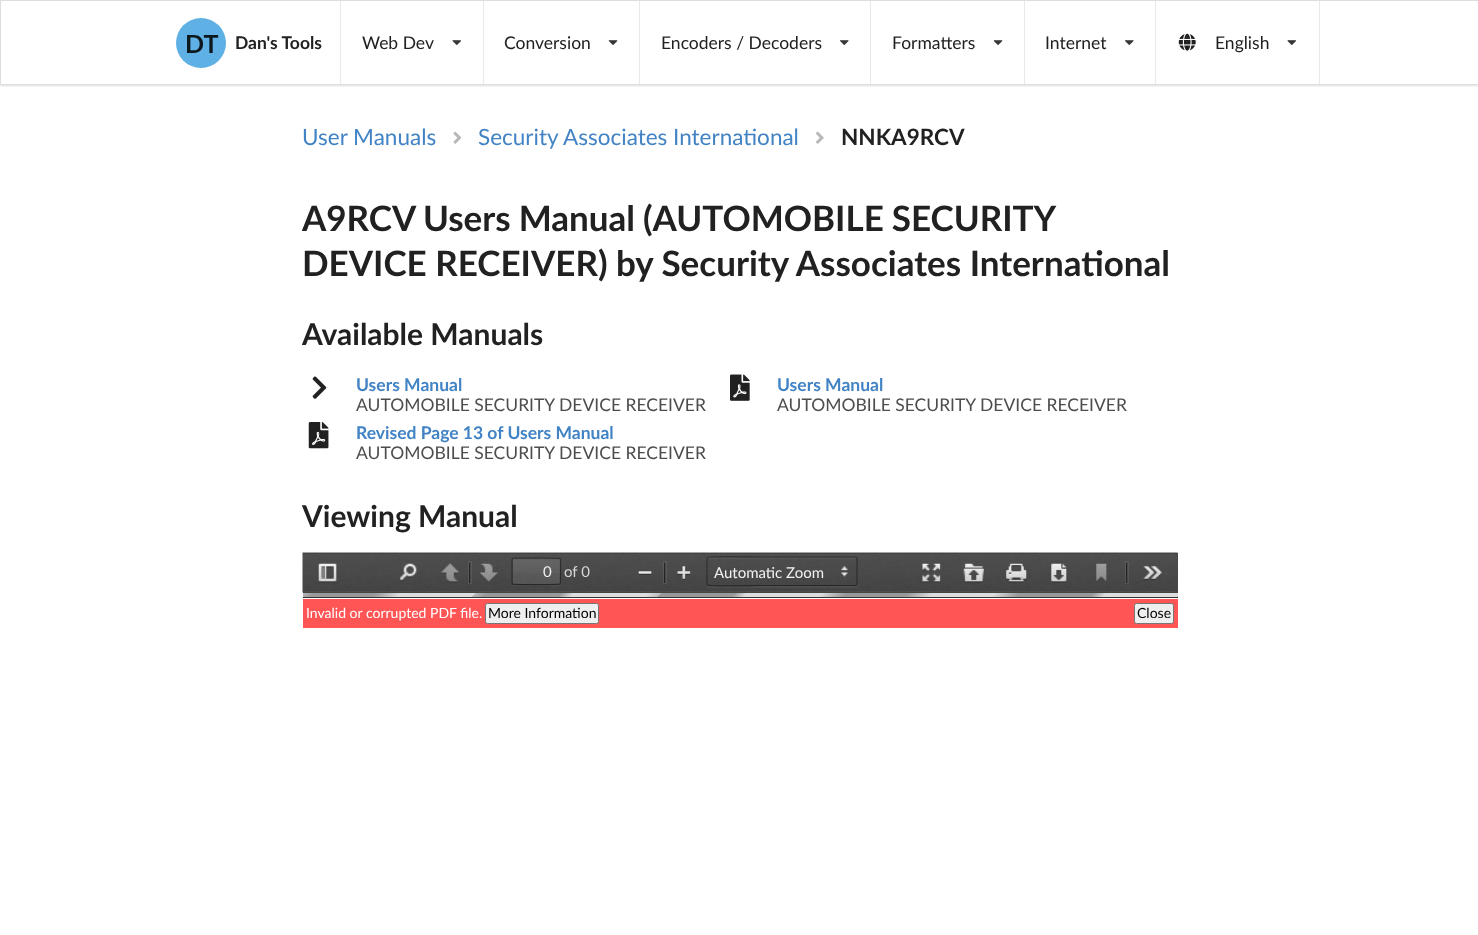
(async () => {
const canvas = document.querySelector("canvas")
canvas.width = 1478
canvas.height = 935
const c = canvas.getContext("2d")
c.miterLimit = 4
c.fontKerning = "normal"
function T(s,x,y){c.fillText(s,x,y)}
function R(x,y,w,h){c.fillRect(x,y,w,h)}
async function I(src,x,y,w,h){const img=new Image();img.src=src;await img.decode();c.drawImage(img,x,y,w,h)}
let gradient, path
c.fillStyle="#fff"
R(0,0,1478,935)
c.save()
c.beginPath()
c.rect(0,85,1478,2)
c.clip()
c.fillStyle="#22242626"
c.filter="blur(1px)"
c.beginPath()
c.rect(0,1,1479,85)
c.fill()
c.filter="none"
c.restore()
c.strokeStyle="#dedede"
c.strokeRect(.5,.5,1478,84)
c.fillStyle="#5fb0e4"
c.beginPath()
c.arc(201,43,25,0,7)
c.fill()
c.font="bold 25px Lato"
c.fillStyle="#0c171e"
T("DT",185,53)
c.font="bold 17.5px Lato"
c.fillStyle="#212121"
T("Dan's Tools",235,49)
c.fillStyle="#e9e9e9"
R(340,1,1,83)
c.font="17.5px Lato"
c.fillStyle="#212121"
T("Web Dev",362,49)
await I("1.png",452,40,9,5)
c.fillStyle="#e9e9e9"
R(483,1,1,83)
c.fillStyle="#212121"
T("Conversion",504,49)
await I("2.png",608,40,10,5)
c.fillStyle="#e9e9e9"
R(639,1,1,83)
c.fillStyle="#212121"
T("Encoders / Decoders",661,49)
await I("3.png",840,40,9,5)
c.fillStyle="#e9e9e9"
R(870,1,1,83)
c.fillStyle="#212121"
T("Formatters",892,49)
await I("2.png",993,40,10,5)
c.fillStyle="#e9e9e9"
R(1024,1,1,83)
c.fillStyle="#212121"
T("Internet",1045,49)
await I("3.png",1125,40,9,5)
c.fillStyle="#e9e9e9"
R(1155,1,1,83)
await I("4.png",1178,33,18,18)
c.fillStyle="#212121"
T("English",1215,49)
await I("1.png",1287,40,9,5)
c.fillStyle="#e9e9e9"
R(1319,1,1,83)
c.font="22.5px Lato"
c.fillStyle="#4183c4"
T("User Manuals",302,145)
await I("5.png",453,131,9,13)
T("Security Associates International",478,145)
await I("6.png",816,131,8,13)
c.font="bold 22.5px Lato"
c.fillStyle="#212121"
T("NNKA9RCV",841,145)
c.wordSpacing="-0.5px"
c.font="bold 35px Lato"
T("A9RCV Users Manual (AUTOMOBILE SECURITY",302,231)
c.wordSpacing="0px"
T("DEVICE RECEIVER) by Security Associates International",302,276)
c.font="bold 30px Lato"
T("Available Manuals",302,345)
await I("7.png",312,376,15,23)
c.font="bold 17.5px Lato"
c.fillStyle="#4183c4"
T("Users Manual",356,391)
c.font="17.5px Lato"
c.fillStyle="#4d4d4d"
T("AUTOMOBILE SECURITY DEVICE RECEIVER",356,411)
await I("8.png",730,374,20,27)
c.font="bold 17.5px Lato"
c.fillStyle="#4183c4"
T("Users Manual",777,391)
c.font="17.5px Lato"
c.fillStyle="#4d4d4d"
T("AUTOMOBILE SECURITY DEVICE RECEIVER",777,411)
await I("9.png",308,422,21,27)
c.font="bold 17.5px Lato"
c.fillStyle="#4183c4"
T("Revised Page 13 of Users Manual",356,439)
c.font="17.5px Lato"
c.fillStyle="#4d4d4d"
T("AUTOMOBILE SECURITY DEVICE RECEIVER",356,459)
c.font="bold 30px Lato"
c.fillStyle="#212121"
T("Viewing Manual",302,527)
c.fillStyle="#474747"
R(303,553,875,40)
await I("10.png",302,552,876,41)
c.fillStyle="#ffffff0d"
R(303,591,875,1)
c.fillStyle="#00000026"
R(303,553,875,1)
await I("11.png",318,563,19,20)
await I("12.png",399,563,18,19)
await I("13.png",441,563,18,20)
c.strokeStyle="#ffffff14"
c.strokeRect(468.5,561.5,3,22)
c.fillStyle="#00000080"
R(469,563,1,20)
await I("14.png",480,563,18,19)
c.fillStyle="#ffffff0d"
path = new Path2D("M511 560v12c0 14-3 14 10 14h30c1 0 10 2 10-2c0 0-1 1-2 1h-45c-2 0-3-1-3-3z")
c.fill(path)
c.fillStyle="#ffffff17"
R(513,559,47,25)
gradient = c.createLinearGradient(536,559,536,584)
gradient.addColorStop(0,"#ffffff0d")
gradient.addColorStop(1,"#ffffff00")
c.fillStyle = gradient
R(513,559,47,14)
c.fillStyle="#0000000d"
path = new Path2D("M514 560h45l1 1c0-4-5-2-8-2h-30c-3 0-9-2-9 1z")
c.fill(path)
path = new Path2D("M512.5 558.5c1.5-1 46.5-.5 47.5 0")
c.strokeStyle="#00000052"
c.lineWidth=1.2
c.stroke(path)
path = new Path2D("M560 558.5l.5 1.5v22.5l-.5 1.5")
c.strokeStyle="#00000061"
c.stroke(path)
path = new Path2D("M560 584c-1 .5-46 1-47.5 0")
c.strokeStyle="#0000006b"
c.stroke(path)
path = new Path2D("M512.5 584l-.5-1.5v-22.5l.5-1.5")
c.strokeStyle="#00000061"
c.stroke(path)
c.font="15px Lato"
c.fillStyle="#f2f2f2"
T("0",543,577)
c.fillStyle="#d9d9d9"
T("of 0",564,577)
await I("15.png",638,571,14,4)
c.strokeStyle="#ffffff14"
c.lineWidth=1
c.strokeRect(663.5,561.5,3,22)
c.fillStyle="#00000080"
R(664,563,1,20)
await I("16.png",677,566,14,14)
c.fillStyle="#ffffff0d"
path = new Path2D("M706 559v27c0 1 1 2 2 2h148c1 0 2-1 2-2v-26v-1v25c0 1-2 2-3 2h-146c-2 0-3-1-3-2z")
c.fill(path)
await I("17.png",841,566,7,11)
path = new Path2D("M709 559h146c1 0 1 0 1 1c0-1 0-2-1-2h-147v2c0-1 0-1 1-1z")
c.fill(path)
path = new Path2D("M707.5 557.5c1.5-1.5 46-.5 50-.5h97.5l1.5 .5")
c.strokeStyle="#00000052"
c.lineWidth=1.2
c.stroke(path)
path = new Path2D("M856.5 557.5l.5 1.5v25l-.5 1")
c.strokeStyle="#00000061"
c.stroke(path)
path = new Path2D("M856.5 585l-1.5 .5h-97.5c-4 0-48.5 1-50-.5")
c.strokeStyle="#0000006b"
c.stroke(path)
path = new Path2D("M707.5 585l-.5-1v-25l.5-1.5")
c.strokeStyle="#00000061"
c.stroke(path)
c.fillStyle="#f2f2f2"
T("Automatic Zoom",714,578)
await I("18.png",922,563,19,20)
await I("19.png",963,563,21,20)
await I("20.png",1006,563,21,20)
await I("21.png",1051,563,16,20)
await I("22.png",1096,563,11,19)
c.strokeStyle="#ffffff14"
c.lineWidth=1
c.strokeRect(1125.5,561.5,3,22)
c.fillStyle="#00000080"
R(1126,563,1,20)
await I("23.png",1143,566,20,14)
c.fillStyle="#333"
R(303,597,875,1)
gradient = c.createLinearGradient(567,328,1186,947)
gradient.addColorStop(0,"#bbb")
gradient.addColorStop(.01,"#999")
gradient.addColorStop(.06,"#999")
gradient.addColorStop(.08,"#ddd")
gradient.addColorStop(.14,"#ddd")
gradient.addColorStop(.14,"#bbb")
gradient.addColorStop(.15,"#999")
gradient.addColorStop(.21,"#999")
gradient.addColorStop(.22,"#ddd")
gradient.addColorStop(.28,"#ddd")
gradient.addColorStop(.29,"#bbb")
gradient.addColorStop(.29,"#999")
gradient.addColorStop(.35,"#999")
gradient.addColorStop(.36,"#ddd")
gradient.addColorStop(.42,"#ddd")
gradient.addColorStop(.43,"#bbb")
gradient.addColorStop(.44,"#999")
gradient.addColorStop(.49,"#999")
gradient.addColorStop(.51,"#ddd")
gradient.addColorStop(.56,"#ddd")
gradient.addColorStop(.57,"#bbb")
gradient.addColorStop(.58,"#999")
gradient.addColorStop(.64,"#999")
gradient.addColorStop(.65,"#ddd")
gradient.addColorStop(.71,"#ddd")
gradient.addColorStop(.71,"#bbb")
gradient.addColorStop(.72,"#999")
gradient.addColorStop(.78,"#999")
gradient.addColorStop(.79,"#ddd")
gradient.addColorStop(.85,"#ddd")
gradient.addColorStop(.86,"#bbb")
gradient.addColorStop(.86,"#999")
gradient.addColorStop(.92,"#999")
gradient.addColorStop(.94,"#ddd")
gradient.addColorStop(.99,"#ddd")
gradient.addColorStop(1,"#bbb")
c.fillStyle = gradient
R(303,593,875,4)
c.fillStyle="#f55"
R(303,599,875,29)
c.font="14px Lato"
c.fillStyle="#fff"
T("Invalid or corrupted PDF file.",306,618)
c.fillStyle="#efefef"
c.beginPath()
c.roundRect(485.5,603.5,113,20,2)
c.fill()
c.strokeStyle="#767676"
c.stroke()
c.fillStyle="#000"
T("More Information",488,618)
c.fillStyle="#efefef"
c.beginPath()
c.roundRect(1134.5,603.5,39,20,2)
c.fill()
c.stroke()
c.fillStyle="#000"
T("Close",1137,618)
})()
